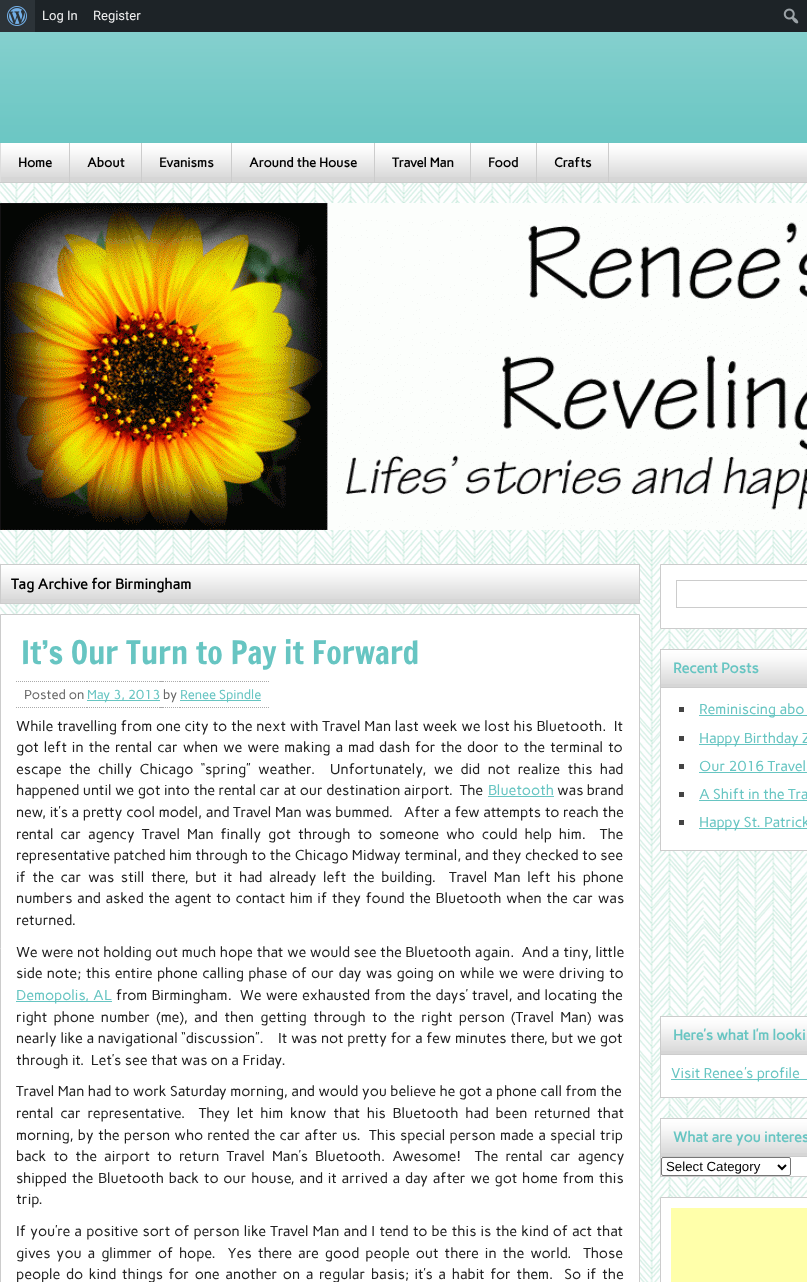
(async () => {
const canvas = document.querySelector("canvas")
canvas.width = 807
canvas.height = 1282
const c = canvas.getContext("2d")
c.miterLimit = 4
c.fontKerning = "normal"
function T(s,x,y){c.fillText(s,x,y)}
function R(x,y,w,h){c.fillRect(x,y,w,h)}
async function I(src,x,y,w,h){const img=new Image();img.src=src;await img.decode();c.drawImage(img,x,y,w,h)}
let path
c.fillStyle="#fff"
R(0,0,807,1282)
await I("1.png",0,183,807,1099)
c.fillStyle="#1d2327"
R(35,0,772,32)
c.fillStyle="#2c3338"
R(0,0,35,32)
await I("2.png",7,6,20,20)
c.font="13px Roboto"
c.fillStyle="#f0f0f1"
T("Log In",42,20)
T("Register",93,20)
await I("3.png",783,8,16,16)
c.fillStyle="#67c5c2"
R(0,32,807,111)
await I("4.png",0,32,807,111)
c.fillStyle="#d6d6d6"
R(1,177,806,5)
await I("5.png",1,143,806,34)
c.fillStyle="#ccc"
R(0,182,807,1)
c.fillStyle="#ddd"
R(0,143,1,39)
c.fillStyle="#ccc"
R(69,143,1,39)
c.font="bold 13px Carme"
c.fillStyle="#000"
T("Home",18,167)
c.fillStyle="#ccc"
R(141,143,1,39)
c.fillStyle="#000"
T("About",87,167)
c.fillStyle="#ccc"
R(231,143,1,39)
c.fillStyle="#000"
T("Evanisms",159,167)
c.fillStyle="#ccc"
R(374,143,1,39)
c.fillStyle="#000"
T("Around the House",249,167)
c.fillStyle="#ccc"
R(470,143,1,39)
c.fillStyle="#000"
T("Travel Man",392,167)
c.fillStyle="#ccc"
R(536,143,1,39)
c.fillStyle="#000"
T("Food",488,167)
c.fillStyle="#ccc"
R(608,143,1,39)
c.fillStyle="#000"
T("Crafts",554,167)
await I("6.png",0,203,807,327)
c.fillStyle="#d6d6d6"
R(1,599,638,4)
await I("7.png",1,565,638,34)
c.strokeStyle="#ccc"
c.strokeRect(.5,564.5,639,39)
c.font="bold 14.4px Carme"
c.fillStyle="#000"
T("Tag Archive for Birmingham",11,589)
c.fillStyle="#fff"
c.beginPath()
c.rect(.5,614.5,639,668)
c.fill()
c.stroke()
c.font="31.75px Francois One"
c.fillStyle="#67c5c2"
T("It’s Our Turn to Pay it Forward",21,664)
c.font="13px Carme"
c.fillStyle="#666"
T("Posted on",24,699)
path = new Path2D("M16 681.5h71")
c.strokeStyle="#aaa"
c.setLineDash([1,1])
c.stroke(path)
path = new Path2D("M87 681.5h73")
c.stroke(path)
c.fillStyle="#67c5c2"
R(87,700,73,1)
T("May 3, 2013",87,699)
path = new Path2D("M16 707.5h71")
c.stroke(path)
path = new Path2D("M87 707.5h73")
c.stroke(path)
c.fillStyle="#aaa"
R(160,681,3,1)
R(160,707,3,1)
path = new Path2D("M163 681.5h17m-17 26h17")
c.stroke(path)
c.fillStyle="#666"
T("by",163,699)
c.fillStyle="#67c5c2"
R(180,700,81,1)
T("Renee Spindle",180,699)
path = new Path2D("M180 681.5h89")
c.stroke(path)
path = new Path2D("M180 707.5h89")
c.stroke(path)
c.wordSpacing="0.4px"
c.font="14.4px Carme"
c.fillStyle="#222"
T("While travelling from one city to the next with Travel Man last week we lost his Bluetooth.  It",16,731)
c.wordSpacing="1.5px"
T("got left in the rental car when we were making a mad dash for the door to the terminal to",16,752)
c.wordSpacing="4.1px"
T("escape the chilly Chicago “spring” weather.  Unfortunately, we did not realize this had",16,774)
c.wordSpacing="0.1px"
T("happened until we got into the rental car at our destination airport.  The",16,795)
c.wordSpacing="0px"
c.fillStyle="#67c5c2"
T("Bluetooth",488,795)
R(488,796,66,1)
c.wordSpacing="0.1px"
c.fillStyle="#222"
T("was brand",557,795)
c.wordSpacing="0.25px"
T("new, it’s a pretty cool model, and Travel Man was bummed.   After a few attempts to reach the",16,817)
c.wordSpacing="3.6px"
T("rental car agency Travel Man finally got through to someone who could help him.  The",16,839)
c.wordSpacing="0.1px"
T("representative patched him through to the Chicago Midway terminal, and they checked to see",16,860)
c.wordSpacing="3.25px"
T("if the car was still there, but it had already left the building.  Travel Man left his phone",16,882)
c.wordSpacing="1.25px"
T("numbers and asked the agent to contact him if they found the Bluetooth when the car was",16,903)
c.wordSpacing="0px"
T("returned.",16,925)
c.wordSpacing="0.25px"
T("We were not holding out much hope that we would see the Bluetooth again.  And a tiny, little",16,957)
c.wordSpacing="1px"
T("side note; this entire phone calling phase of our day was going on while we were driving to",16,978)
c.fillStyle="#67c5c2"
R(16,1001,96,1)
c.wordSpacing="0.75px"
T("Demopolis, AL",16,1000)
c.fillStyle="#222"
T("from Birmingham.  We were exhausted from the days’ travel, and locating the",116,1000)
c.wordSpacing="3px"
T("right phone number (me), and then getting through to the right person (Travel Man) was",16,1022)
c.wordSpacing="0.3px"
T("nearly like a navigational “discussion”.    It was not pretty for a few minutes there, but we got",16,1043)
c.wordSpacing="0px"
T("through it.  Let’s see that was on a Friday.",16,1065)
T("Travel Man had to work Saturday morning, and would you believe he got a phone call from the",16,1096)
c.wordSpacing="3.4px"
T("rental car representative.  They let him know that his Bluetooth had been returned that",16,1118)
c.wordSpacing="0.9px"
T("morning, by the person who rented the car after us.  This special person made a special trip",16,1140)
c.wordSpacing="3.75px"
T("back to the airport to return Travel Man’s Bluetooth. Awesome!  The rental car agency",16,1161)
c.wordSpacing="1.4px"
T("shipped the Bluetooth back to our house, and it arrived a day after we got home from this",16,1183)
c.wordSpacing="0px"
T("trip.",16,1204)
c.wordSpacing="0.75px"
T("If you’re a positive sort of person like Travel Man and I tend to be this is the kind of act that",16,1236)
c.wordSpacing="2.6px"
T("gives you a glimmer of hope.  Yes there are good people out there in the world.  Those",16,1258)
c.wordSpacing="2.25px"
T("people do kind things for one another on a regular basis; it’s a habit for them.  So if the",16,1279)
c.fillStyle="#fff"
c.beginPath()
c.rect(660.5,564.5,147,64)
c.fill()
c.strokeStyle="#ccc"
c.setLineDash([])
c.stroke()
c.strokeRect(676.5,580.5,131,27)
R(661,688,146,162)
c.strokeRect(660.5,649.5,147,201)
c.fillStyle="#d6d6d6"
R(661,684,146,3)
await I("8.png",661,650,146,34)
c.fillStyle="#ccc"
R(661,687,146,1)
c.wordSpacing="0px"
c.font="bold 14.4px Carme"
c.fillStyle="#67c5c2"
T("Recent Posts",673,673)
c.fillStyle="#444"
R(679,707,5,5)
c.fillStyle="#67c5c2"
R(699,715,108,1)
c.font="14.4px Carme"
T("Reminiscing abo",699,714)
c.fillStyle="#444"
R(679,736,5,5)
c.fillStyle="#67c5c2"
R(699,744,108,1)
T("Happy Birthday Z",699,743)
c.fillStyle="#444"
R(679,764,5,5)
c.fillStyle="#67c5c2"
T("Our 2016 Travel",699,771)
R(699,772,108,1)
c.fillStyle="#444"
R(679,792,5,5)
c.fillStyle="#67c5c2"
T("A Shift in the Tra",699,799)
R(699,800,108,1)
c.fillStyle="#444"
R(679,820,5,5)
c.fillStyle="#67c5c2"
R(699,828,108,1)
T("Happy St. Patrick",699,827)
c.fillStyle="#fff"
R(661,1055,146,42)
c.strokeRect(660.5,1016.5,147,81)
c.fillStyle="#d6d6d6"
R(661,1051,146,3)
await I("8.png",661,1017,146,34)
c.fillStyle="#ccc"
R(661,1054,146,1)
c.font="bold 14.4px Carme"
c.fillStyle="#67c5c2"
T("Here’s what I’m looki",673,1040)
R(671,1079,136,1)
c.font="14.4px Carme"
T("Visit Renee's profile",671,1078)
c.fillStyle="#fff"
R(661,1157,146,19)
c.strokeRect(660.5,1118.5,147,58)
c.fillStyle="#d6d6d6"
R(661,1153,146,3)
await I("8.png",661,1119,146,34)
c.fillStyle="#ccc"
R(661,1156,146,1)
c.font="bold 14.4px Carme"
c.fillStyle="#67c5c2"
T("What are you interes",673,1142)
c.beginPath()
c.roundRect(661.5,1157.5,129,18,1.5)
c.strokeStyle="#767676"
c.stroke()
path = new Path2D("M778 1165l4 4l4-4")
c.strokeStyle="#000"
c.lineWidth=2
c.stroke(path)
c.font="13.25px Liberation Sans"
c.fillStyle="#000"
T("Select Category",666,1171)
c.fillStyle="#fff"
c.beginPath()
c.rect(660.5,1197.5,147,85)
c.fill()
c.strokeStyle="#ccc"
c.lineWidth=1
c.stroke()
c.fillStyle="#ffa"
R(671,1208,136,74)
})()
